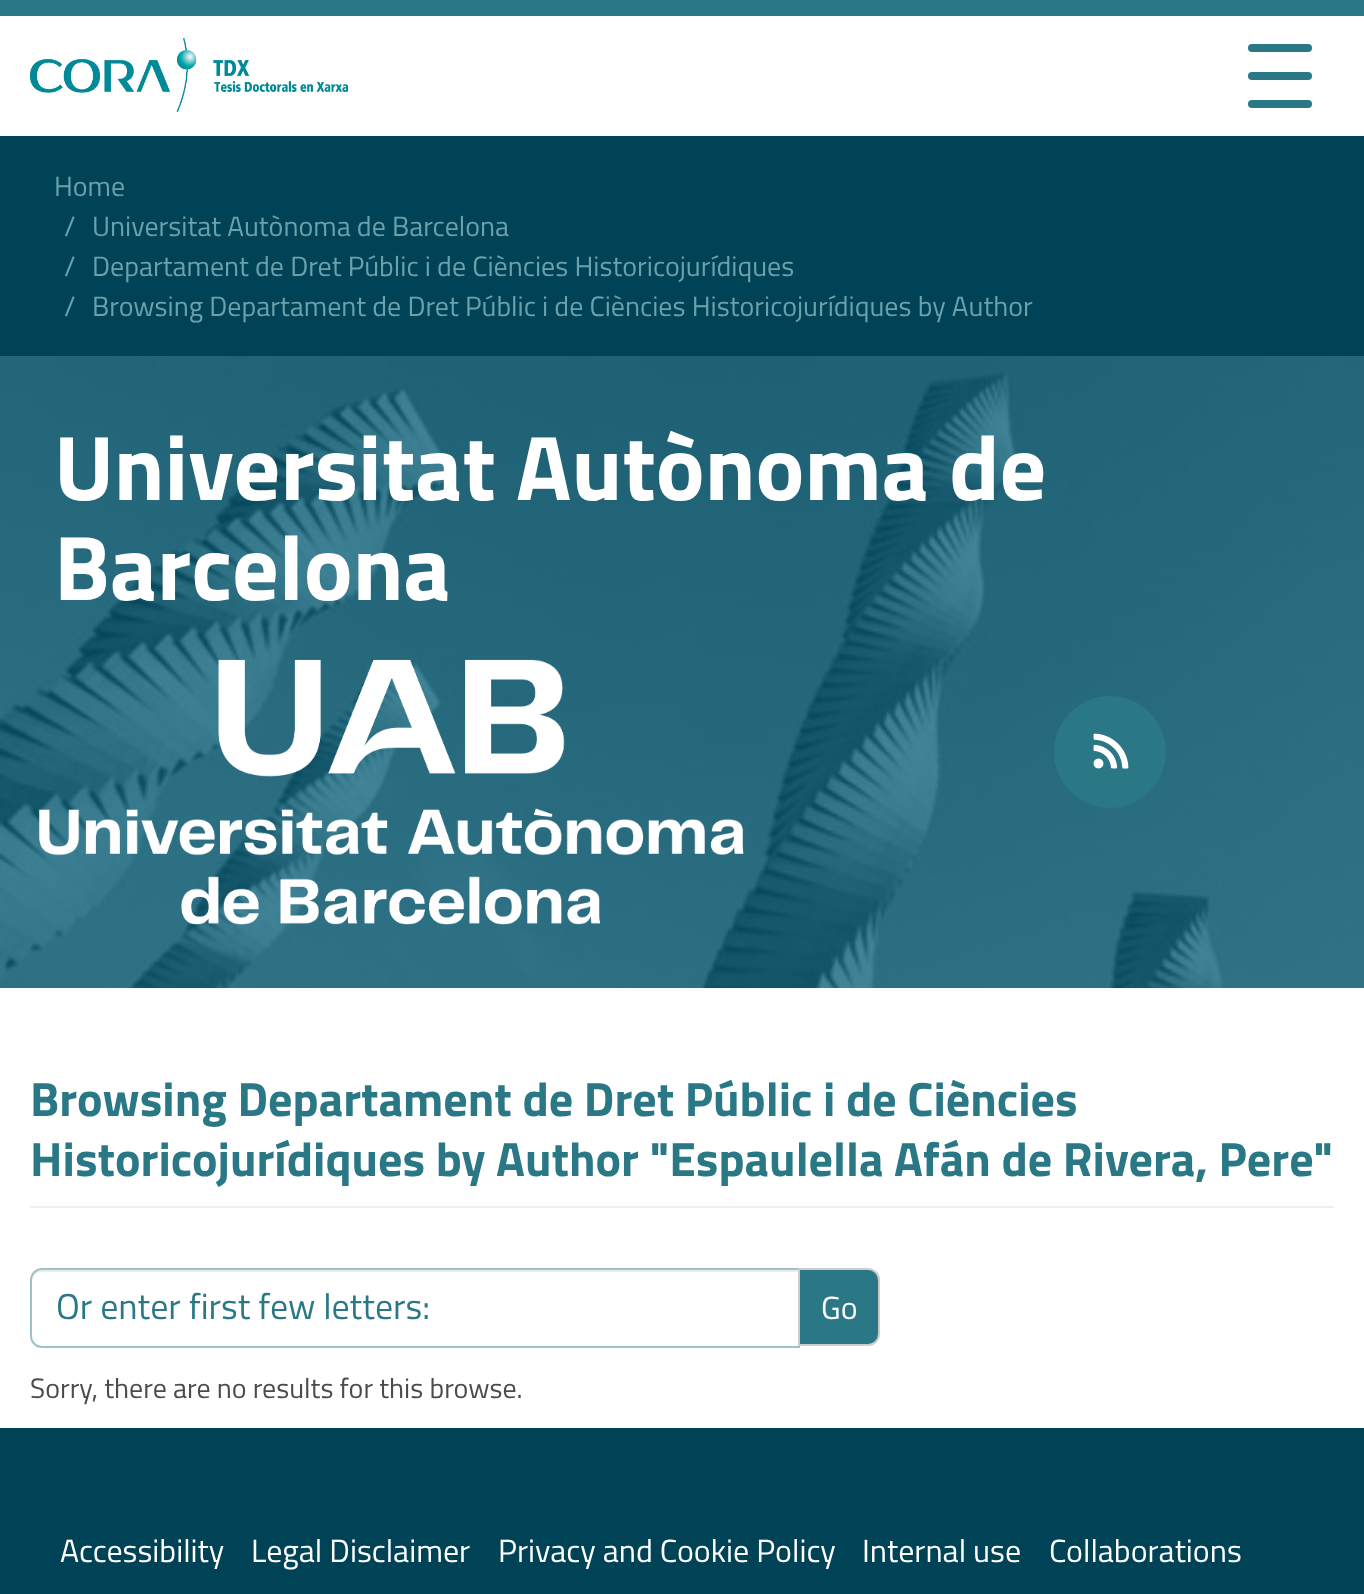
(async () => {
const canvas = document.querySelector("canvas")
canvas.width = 1364
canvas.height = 1594
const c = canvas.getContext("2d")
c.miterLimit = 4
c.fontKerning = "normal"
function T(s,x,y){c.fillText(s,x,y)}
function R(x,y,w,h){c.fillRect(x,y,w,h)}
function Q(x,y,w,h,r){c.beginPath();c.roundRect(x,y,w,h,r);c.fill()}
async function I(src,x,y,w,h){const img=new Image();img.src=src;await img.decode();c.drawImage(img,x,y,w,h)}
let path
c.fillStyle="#fff"
R(0,0,1364,1594)
c.fillStyle="#2a7886"
R(0,0,1364,16)
await I("1.png",30,38,318,74)
Q(1248,44,64,8,4)
Q(1248,72,64,8,4)
Q(1248,100,64,8,4)
c.fillStyle="#004357"
R(0,136,1364,220)
c.font="28px Titillium Web"
c.fillStyle="#6aa1ab"
T("Home",54,196)
T("/",64,236)
T("Universitat Autònoma de Barcelona",92,236)
T("/",64,276)
T("Departament de Dret Públic i de Ciències Historicojurídiques",92,276)
T("/",64,316)
T("Browsing Departament de Dret Públic i de Ciències Historicojurídiques by Author",92,316)
await I("2.png",0,356,1364,632)
c.font="bold 92px Titillium Web"
c.fillStyle="#fff"
T("Universitat Autònoma de",54,500)
T("Barcelona",54,600)
await I("3.png",39,659,705,266)
c.fillStyle="#2a7886"
c.beginPath()
c.arc(1110,752,56,0,7)
c.fill()
await I("4.png",1093,733,36,36)
c.fillStyle="#eee"
R(30,1206,1304,2)
c.font="bold 48px Titillium Web"
c.fillStyle="#2a7886"
T("Browsing Departament de Dret Públic i de Ciències",30,1116)
T("Historicojurídiques by Author \"Espaulella Afán de Rivera, Pere\"",30,1176)
c.fillStyle="#ececec"
path = new Path2D("M42 1272h756v-2h-756c-7 0-10 6-10 12c0-6 4-10 10-10z")
c.fill(path)
c.beginPath()
c.roundRect(31,1269,768,78,[11,0,0,11])
c.strokeStyle="#9fc2c8"
c.lineWidth=2
c.stroke()
c.font="36px Titillium Web"
c.fillStyle="#2a7886"
T("Or enter first few letters:",56,1319)
c.beginPath()
c.roundRect(799,1269,80,76,[0,11,11,0])
c.fill()
c.strokeStyle="#ccc"
c.stroke()
c.font="32px Titillium Web"
c.fillStyle="#fff"
T("Go",821,1319)
c.font="28px Titillium Web"
c.fillStyle="#4d4b4a"
T("Sorry, there are no results for this browse.",30,1398)
c.fillStyle="#004357"
R(0,1428,1364,166)
c.font="32px Titillium Web"
c.fillStyle="#fff"
T("Accessibility",60,1562)
T("Legal Disclaimer",251,1562)
T("Privacy and Cookie Policy",498,1562)
T("Internal use",862,1562)
T("Collaborations",1049,1562)
})()
